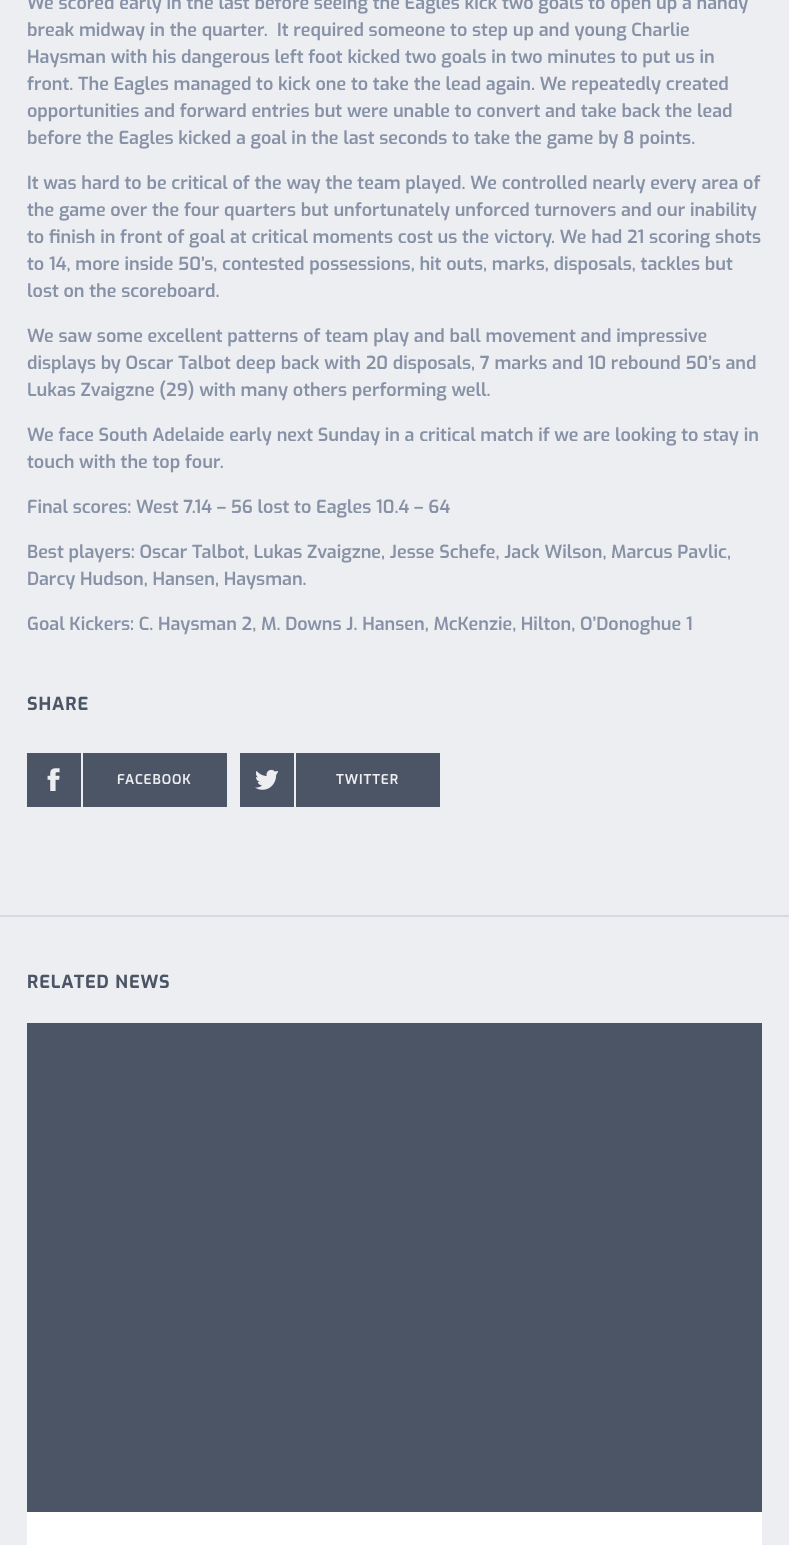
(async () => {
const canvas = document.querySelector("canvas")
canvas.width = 789
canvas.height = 1545
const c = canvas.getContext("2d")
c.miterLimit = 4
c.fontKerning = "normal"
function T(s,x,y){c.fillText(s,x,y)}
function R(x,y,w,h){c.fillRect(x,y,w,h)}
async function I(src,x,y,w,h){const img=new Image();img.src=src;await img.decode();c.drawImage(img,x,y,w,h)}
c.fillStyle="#edeef2"
R(0,0,789,1545)
c.font="600 18px Exo"
c.fillStyle="#8792a6"
T("We scored early in the last before seeing the Eagles kick two goals to open up a handy",27,9)
T("break midway in the quarter.  It required someone to step up and young Charlie",27,36)
T("Haysman with his dangerous left foot kicked two goals in two minutes to put us in",27,63)
T("front. The Eagles managed to kick one to take the lead again. We repeatedly created",27,90)
T("opportunities and forward entries but were unable to convert and take back the lead",27,117)
T("before the Eagles kicked a goal in the last seconds to take the game by 8 points.",27,144)
T("It was hard to be critical of the way the team played. We controlled nearly every area of",27,189)
T("the game over the four quarters but unfortunately unforced turnovers and our inability",27,216)
T("to finish in front of goal at critical moments cost us the victory. We had 21 scoring shots",27,243)
T("to 14, more inside 50’s, contested possessions, hit outs, marks, disposals, tackles but",27,270)
T("lost on the scoreboard.",27,297)
T("We saw some excellent patterns of team play and ball movement and impressive",27,342)
T("displays by Oscar Talbot deep back with 20 disposals, 7 marks and 10 rebound 50’s and",27,369)
T("Lukas Zvaigzne (29) with many others performing well.",27,396)
T("We face South Adelaide early next Sunday in a critical match if we are looking to stay in",27,441)
T("touch with the top four.",27,468)
T("Final scores: West 7.14 – 56 lost to Eagles 10.4 – 64",27,513)
T("Best players: Oscar Talbot, Lukas Zvaigzne, Jesse Schefe, Jack Wilson, Marcus Pavlic,",27,558)
T("Darcy Hudson, Hansen, Haysman.",27,585)
T("Goal Kickers: C. Haysman 2, M. Downs J. Hansen, McKenzie, Hilton, O’Donoghue 1",27,630)
c.letterSpacing="0.9px"
c.font="bold 18px Exo"
c.fillStyle="#4c5565"
T("SHARE",27,710)
R(27,753,200,54)
c.fillStyle="#edeef2"
R(81,753,2,54)
await I("1.png",47,768,13,23)
c.font="600 13.5px Exo"
T("FACEBOOK",117,784)
c.fillStyle="#4c5565"
R(240,753,200,54)
c.fillStyle="#edeef2"
R(294,753,2,54)
await I("2.png",255,769,23,21)
T("TWITTER",336,784)
c.fillStyle="#d6d9e2"
R(0,915,789,2)
c.font="bold 18px Exo"
c.fillStyle="#4c5565"
T("RELATED NEWS",27,988)
R(27,1023,735,489)
c.fillStyle="#fff"
R(27,1512,735,33)
})()
